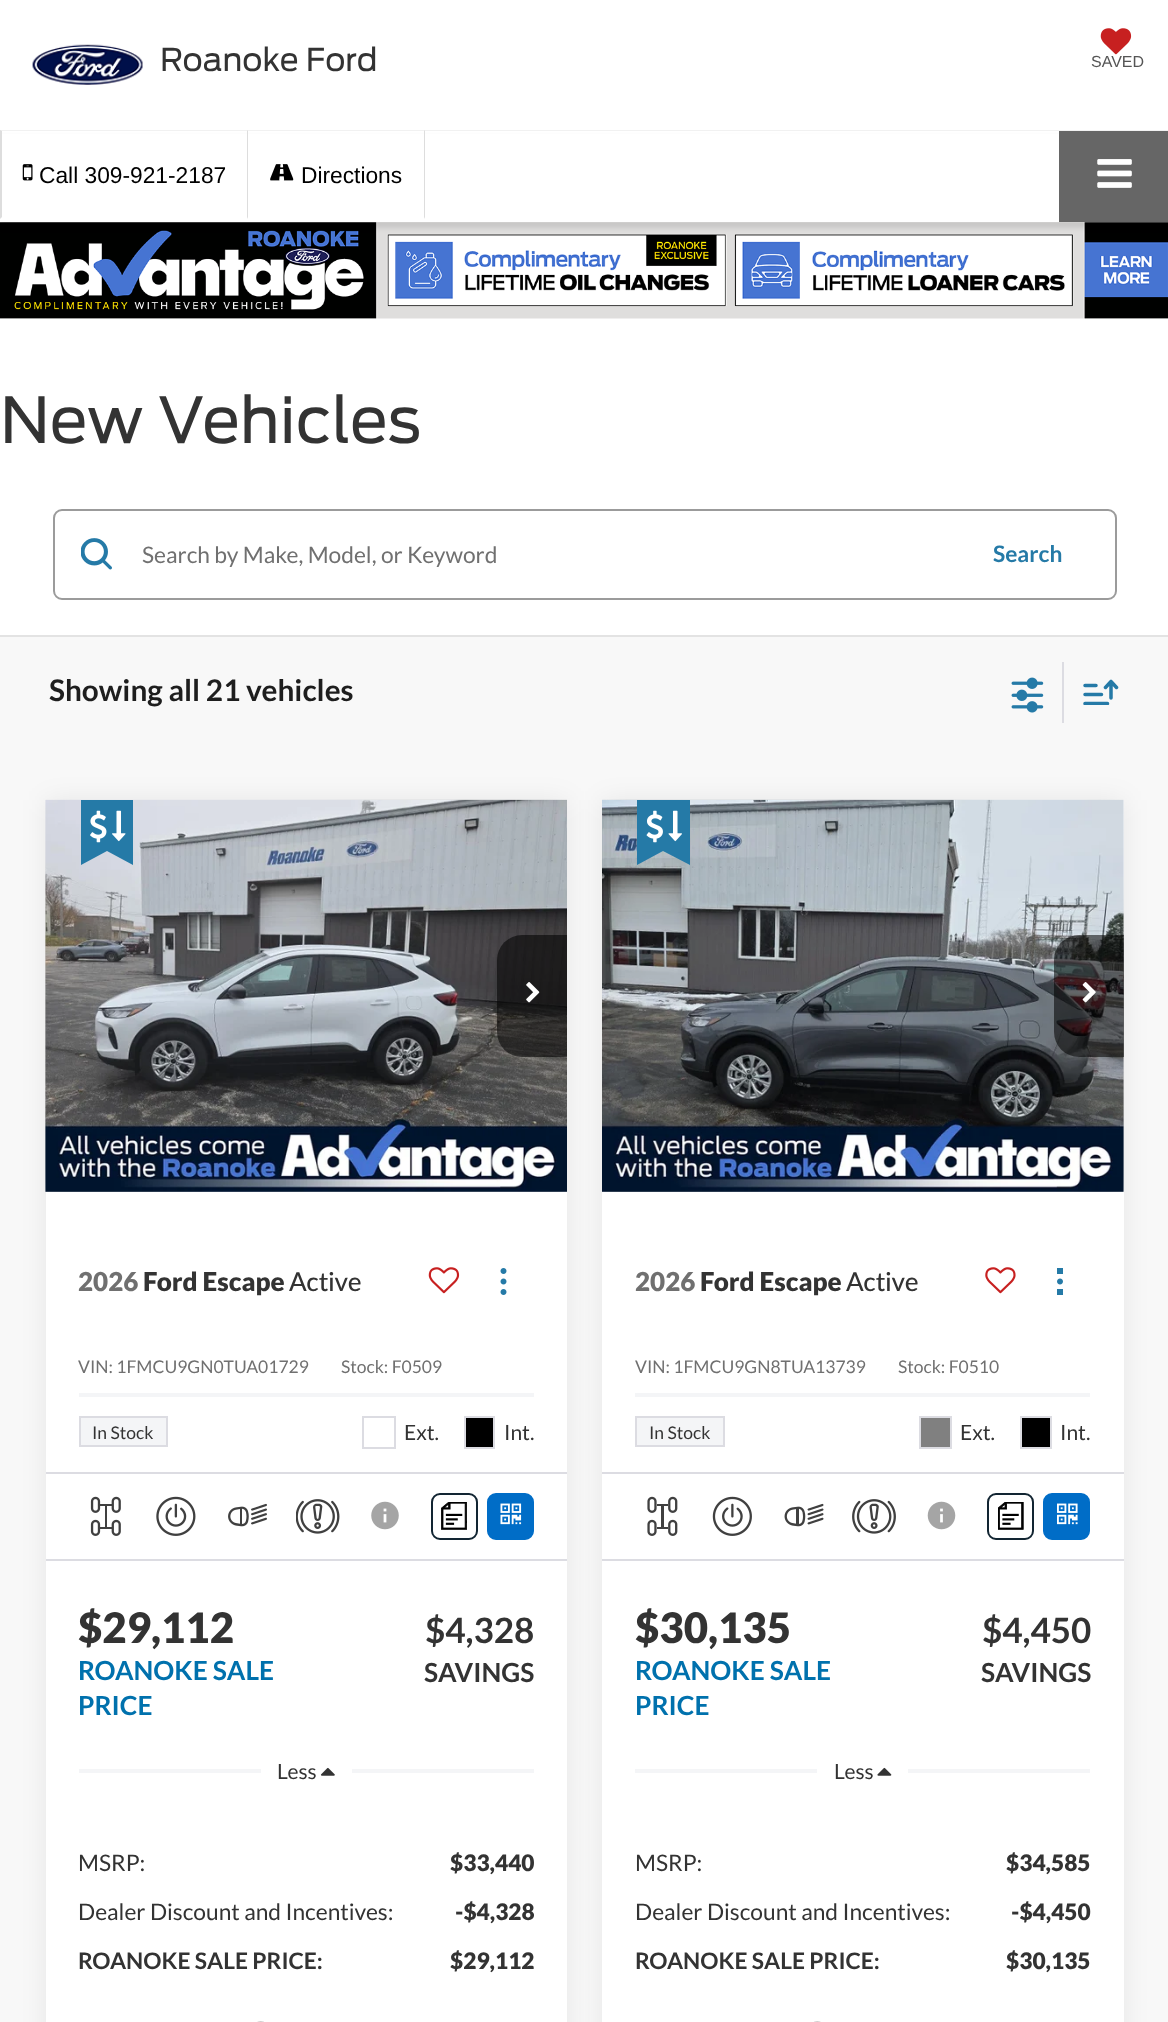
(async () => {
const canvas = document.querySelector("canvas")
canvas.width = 1168
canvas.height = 2022
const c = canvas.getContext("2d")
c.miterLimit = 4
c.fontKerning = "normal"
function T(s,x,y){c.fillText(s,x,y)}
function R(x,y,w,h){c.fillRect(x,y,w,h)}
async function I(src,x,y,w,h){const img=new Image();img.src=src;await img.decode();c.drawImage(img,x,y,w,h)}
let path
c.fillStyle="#fff"
R(0,0,1168,2022)
await I("1.png",32,44,111,41)
c.font="31.5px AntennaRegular"
c.fillStyle="#333"
T("Roanoke Ford",160,71)
await I("2.png",1100,28,32,27)
c.font="16px Liberation Sans"
c.fillStyle="#555"
T("SAVED",1091,67)
c.fillStyle="#f1f1f1"
R(0,130,1168,1)
await I("6.png",0,222,1168,97)
c.fillStyle="#0000001a"
c.filter="blur(2.5px)"
c.beginPath()
c.rect(0,137,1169,91)
c.fill()
c.filter="none"
c.fillStyle="#fff"
R(0,134,1059,88)
c.fillStyle="#ddd"
path = new Path2D("M0 219v-89l2 1v86z")
c.fill(path)
await I("3.png",22,164,11,17)
c.font="22.75px Liberation Sans"
c.fillStyle="#000"
T("Call 309-921-2187",39,183)
c.fillStyle="#ddd"
path = new Path2D("M425 130v89l-1-2v-86z")
c.fill(path)
path = new Path2D("M247 219v-89l1 1v86z")
c.fill(path)
await I("4.png",270,164,24,17)
c.fillStyle="#000"
T("Directions",301,183)
c.fillStyle="#666"
R(1059,131,109,91)
await I("5.png",1097,159,35,29)
c.font="63px AntennaRegular"
c.fillStyle="#333"
T("New Vehicles",0,443)
c.fillStyle="#f8f8f8"
R(0,637,1168,1385)
c.fillStyle="#e3e3e3"
R(0,635,1168,2)
c.beginPath()
c.roundRect(54,510,1062,89,8)
c.strokeStyle="#9b9b9b"
c.lineWidth=2
c.stroke()
await I("7.png",81,538,31,32)
c.font="22.75px Lato"
c.fillStyle="#707070"
T("Search by Make, Model, or Keyword",142,563)
c.font="bold 22.75px Lato"
c.fillStyle="#257aa7"
T("Search",993,562)
c.font="bold 29.75px Lato"
c.fillStyle="#1e1e1e"
T("Showing all 21 vehicles",49,701)
await I("8.png",1011,677,33,36)
c.fillStyle="#dcdce2"
R(1062,662,2,61)
c.save()
c.beginPath()
c.rect(1082,679,38,26)
c.clip()
path = new Path2D("M1085 703.5h22.5m-22.5-9h16.5m-16.5-9h11m15 12.5v-16.5m0 0l5.5 6m-5.5-6l-5.5 6")
c.strokeStyle="#257aa7"
c.lineWidth=3.5
c.lineCap="round"
c.lineJoin="round"
c.stroke(path)
c.restore()
c.fillStyle="#00000012"
c.filter="blur(13px)"
c.beginPath()
c.rect(46,800,521,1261)
c.fill()
c.filter="none"
c.fillStyle="#fff"
R(46,1191,521,831)
await I("9.png",45,799,522,393)
c.fillStyle="#dcdce2"
R(46,1472,521,2)
R(46,1559,521,2)
c.fillStyle="#00000012"
c.filter="blur(13px)"
c.beginPath()
c.rect(602,800,522,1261)
c.fill()
c.filter="none"
await I("10.png",45,799,522,393)
c.fillStyle="#0000008c"
c.beginPath()
c.roundRect(497,935,70,122,[25,0,0,25])
c.fill()
await I("11.png",526,982,14,21)
c.fillStyle="#257aa7"
path = new Path2D("M81 800v65l26-14l26 14v-65z")
c.fill(path)
await I("12.png",90,810,17,33)
await I("13.png",112,810,14,32)
c.font="900 26px Lato"
c.fillStyle="#707070"
T("2026",78,1291)
c.fillStyle="#333"
T("Ford Escape",143,1291)
c.font="500 26px Lato"
T("Active",289,1291)
await I("14.png",428,1267,32,27)
await I("15.png",500,1268,7,6)
await I("16.png",500,1278,7,7)
await I("15.png",500,1289,7,6)
c.font="17.5px Lato"
c.fillStyle="#707070"
T("VIN: 1FMCU9GN0TUA01729",78,1373)
T("Stock: F0509",341,1373)
c.fillStyle="#f4f5f7"
R(79,1393,455,4)
c.beginPath()
c.rect(80,1417,87,29)
c.fill()
c.strokeStyle="#dcdce2"
c.stroke()
c.fillStyle="#333"
T("In Stock",92,1439)
c.strokeRect(363,1417,32,31)
c.font="21px Lato"
T("Ext.",404,1440)
c.fillStyle="#000"
c.beginPath()
c.rect(465,1417,29,31)
c.fill()
c.stroke()
c.fillStyle="#333"
T("Int.",504,1440)
await I("17.png",90,1496,31,40)
await I("18.png",156,1496,40,40)
await I("19.png",228,1503,39,24)
await I("20.png",296,1499,44,35)
await I("21.png",371,1501,28,29)
c.beginPath()
c.roundRect(432,1494,45,45,8)
c.strokeStyle="#122532"
c.stroke()
await I("22.png",441,1502,26,28)
c.fillStyle="#006dc7"
c.beginPath()
c.roundRect(488,1494,45,45,8)
c.fill()
c.strokeStyle="#006dc7"
c.stroke()
await I("23.png",500,1503,22,22)
c.font="900 42px Lato"
c.fillStyle="#333"
T("$29,112",78,1643)
c.font="bold 26.25px Lato"
c.fillStyle="#0071ad"
T("ROANOKE SALE",78,1680)
T("PRICE",78,1715)
c.font="bold 35px Lato"
c.fillStyle="#333"
T("$4,328",425,1643)
c.font="bold 26.25px Lato"
T("SAVINGS",424,1682)
c.fillStyle="#f4f5f7"
R(79,1769,182,4)
c.font="21px Lato"
c.fillStyle="#333"
T("Less",277,1779)
await I("24.png",320,1767,15,9)
c.fillStyle="#f4f5f7"
R(352,1769,182,4)
c.font="22.75px Lato"
c.fillStyle="#333"
T("MSRP:",78,1871)
c.font="900 22.75px Lato"
T("$33,440",450,1871)
c.font="22.75px Lato"
T("Dealer Discount and Incentives:",78,1920)
c.font="900 22.75px Lato"
T("-$4,328",455,1920)
c.font="bold 22.75px Lato"
T("ROANOKE SALE PRICE:",78,1969)
c.font="900 22.75px Lato"
T("$29,112",450,1969)
await I("25.png",257,2021,7,1)
c.fillStyle="#fff"
R(602,800,522,1222)
await I("26.png",602,799,522,393)
await I("27.png",602,799,522,393)
c.fillStyle="#0000008c"
c.beginPath()
c.roundRect(1054,935,70,122,[25,0,0,25])
c.fill()
await I("28.png",1082,982,14,21)
c.fillStyle="#257aa7"
path = new Path2D("M637 800v65l26-14l27 14v-65z")
c.fill(path)
await I("29.png",646,810,17,33)
await I("30.png",668,810,14,32)
c.font="900 26px Lato"
c.fillStyle="#707070"
T("2026",635,1291)
c.fillStyle="#333"
T("Ford Escape",700,1291)
c.font="500 26px Lato"
T("Active",846,1291)
await I("31.png",985,1267,31,27)
c.fillStyle="#257aa7"
R(1057,1268,6,6)
await I("32.png",1057,1278,6,7)
R(1057,1289,6,6)
c.font="17.5px Lato"
c.fillStyle="#707070"
T("VIN: 1FMCU9GN8TUA13739",635,1373)
T("Stock: F0510",898,1373)
c.fillStyle="#f4f5f7"
R(635,1393,455,4)
c.beginPath()
c.rect(636,1417,88,29)
c.fill()
c.strokeStyle="#dcdce2"
c.stroke()
c.fillStyle="#333"
T("In Stock",649,1439)
c.fillStyle="#808080"
c.beginPath()
c.rect(920,1417,31,31)
c.fill()
c.stroke()
c.font="21px Lato"
c.fillStyle="#333"
T("Ext.",960,1440)
c.fillStyle="#000"
c.beginPath()
c.rect(1021,1417,30,31)
c.fill()
c.stroke()
c.fillStyle="#333"
T("Int.",1060,1440)
c.fillStyle="#dcdce2"
R(602,1472,522,2)
await I("33.png",647,1496,31,40)
await I("34.png",712,1496,40,40)
await I("35.png",784,1503,40,24)
await I("36.png",852,1499,44,35)
await I("37.png",927,1501,29,29)
c.beginPath()
c.roundRect(988,1494,45,45,8)
c.strokeStyle="#122532"
c.stroke()
await I("38.png",998,1502,26,28)
c.fillStyle="#006dc7"
c.beginPath()
c.roundRect(1044,1494,45,45,8)
c.fill()
c.strokeStyle="#006dc7"
c.stroke()
await I("39.png",1057,1503,21,22)
c.fillStyle="#dcdce2"
R(602,1559,522,2)
c.font="900 42px Lato"
c.fillStyle="#333"
T("$30,135",635,1643)
c.font="bold 26.25px Lato"
c.fillStyle="#0071ad"
T("ROANOKE SALE",635,1680)
T("PRICE",635,1715)
c.font="bold 35px Lato"
c.fillStyle="#333"
T("$4,450",982,1643)
c.font="bold 26.25px Lato"
T("SAVINGS",981,1682)
c.fillStyle="#f4f5f7"
R(635,1769,182,4)
c.font="21px Lato"
c.fillStyle="#333"
T("Less",834,1779)
await I("40.png",877,1767,15,9)
c.fillStyle="#f4f5f7"
R(908,1769,182,4)
c.font="22.75px Lato"
c.fillStyle="#333"
T("MSRP:",635,1871)
c.font="900 22.75px Lato"
T("$34,585",1006,1871)
c.font="22.75px Lato"
T("Dealer Discount and Incentives:",635,1920)
c.font="900 22.75px Lato"
T("-$4,450",1011,1920)
c.font="bold 22.75px Lato"
T("ROANOKE SALE PRICE:",635,1969)
c.font="900 22.75px Lato"
T("$30,135",1006,1969)
await I("41.png",814,2021,7,1)
})()
